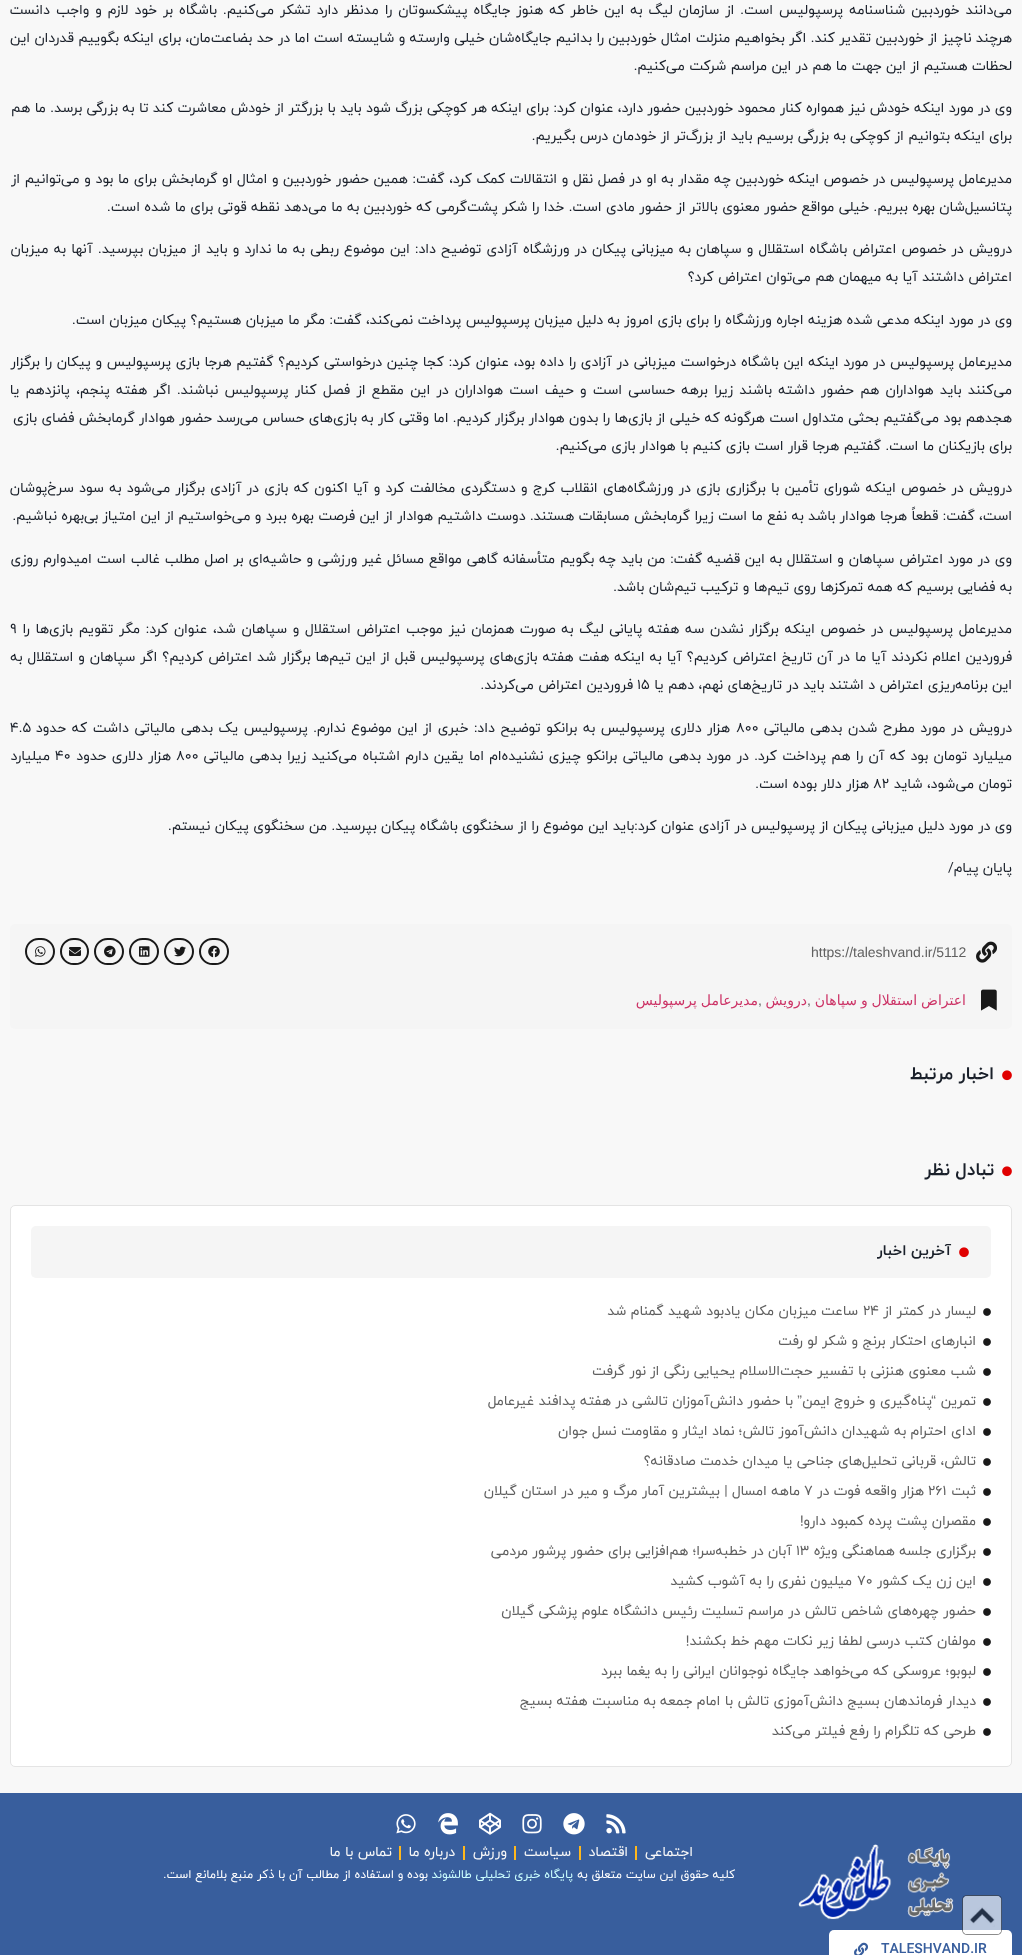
(async () => {
const canvas = document.querySelector("canvas")
canvas.width = 1022
canvas.height = 1955
const c = canvas.getContext("2d")
c.miterLimit = 4
c.fontKerning = "normal"
function T(s,x,y){c.fillText(s,x,y)}
function R(x,y,w,h){c.fillRect(x,y,w,h)}
function Q(x,y,w,h,r){c.beginPath();c.roundRect(x,y,w,h,r);c.fill()}
async function I(src,x,y,w,h){const img=new Image();img.src=src;await img.decode();c.drawImage(img,x,y,w,h)}
c.fillStyle="#f8f8f8"
R(0,0,1022,1955)
c.wordSpacing="1.55px"
c.direction="rtl"
c.font="14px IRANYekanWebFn"
c.fillStyle="#1a202a"
T("می‌دانند خوردبین شناسنامه پرسپولیس است. از سازمان لیگ به این خاطر که هنوز جایگاه پیشکسوتان را مدنظر دارد تشکر می‌کنیم. باشگاه بر خود لازم و واجب دانست",1012,14)
c.wordSpacing="0px"
T("هرچند ناچیز از خوردبین تقدیر کند. اگر بخواهیم منزلت امثال خوردبین را بدانیم جایگاه‌شان خیلی وارسته و شایسته است اما در حد بضاعت‌مان، برای اینکه بگوییم قدردان این",1012,42)
T("لحظات هستیم از این جهت ما هم در این مراسم شرکت می‌کنیم.",1012,70)
T("وی در مورد اینکه خودش نیز همواره کنار محمود خوردبین حضور دارد، عنوان کرد: برای اینکه هر کوچکی بزرگ شود باید با بزرگتر از خودش معاشرت کند تا به بزرگی برسد. ما هم",1012,112)
T("برای اینکه بتوانیم از کوچکی به بزرگی برسیم باید از بزرگ‌تر از خودمان درس بگیریم.",1012,140)
c.wordSpacing="0.25px"
T("مدیرعامل پرسپولیس در خصوص اینکه خوردبین چه مقدار به او در فصل نقل و انتقالات کمک کرد، گفت: همین حضور خوردبین و امثال او گرمابخش برای ما بود و می‌توانیم از",1012,183)
c.wordSpacing="0px"
T("پتانسیل‌شان بهره ببریم. خیلی مواقع حضور معنوی بالاتر از حضور مادی است. خدا را شکر پشت‌گرمی که خوردبین به ما می‌دهد نقطه قوتی برای ما شده است.",1012,211)
c.wordSpacing="0.75px"
T("درویش در خصوص اعتراض باشگاه استقلال و سپاهان به میزبانی پیکان در ورزشگاه آزادی توضیح داد: این موضوع ربطی به ما ندارد و باید از میزبان بپرسید. آنها به میزبان",1012,253)
c.wordSpacing="0px"
T("اعتراض داشتند آیا به میهمان هم می‌توان اعتراض کرد؟",1012,281)
T("وی در مورد اینکه مدعی شده هزینه اجاره ورزشگاه را برای بازی امروز به دلیل میزبان پرسپولیس پرداخت نمی‌کند، گفت: مگر ما میزبان هستیم؟ پیکان میزبان است.",1012,324)
c.wordSpacing="0.3px"
T("مدیرعامل پرسپولیس در مورد اینکه این باشگاه درخواست میزبانی در آزادی را داده بود، عنوان کرد: کجا چنین درخواستی کردیم؟ گفتیم هرجا بازی پرسپولیس و پیکان را برگزار",1012,366)
c.wordSpacing="1.85px"
T("می‌کنند باید هواداران هم حضور داشته باشند زیرا برهه‌ حساسی است و حیف است هواداران در این مقطع از فصل کنار پرسپولیس نباشند. اگر هفته پنجم، پانزدهم یا",1012,394)
c.wordSpacing="0px"
T("هجدهم بود می‌گفتیم بحثی متداول است هرگونه که خیلی از بازی‌ها را بدون هوادار برگزار کردیم. اما وقتی کار به باز‌ی‌های حساس می‌رسد حضور هوادار گرمابخش فضای بازی",1012,422)
T("برای بازیکنان ما است. گفتیم هرجا قرار است بازی کنیم با هوادار بازی می‌کنیم.",1012,450)
c.wordSpacing="0.9px"
T("درویش در خصوص اینکه شورای تأمین با برگزاری بازی در ورزشگاه‌های انقلاب کرج و دستگردی مخالفت کرد و آیا اکنون که بازی در آزادی برگزار می‌شود به سود سرخ‌پوشان",1012,492)
c.wordSpacing="0px"
T("است، گفت: قطعاً هرجا هوادار باشد به نفع ما است زیرا گرمابخش مسابقات هستند. دوست داشتیم هوادار از این فرصت بهره ببرد و می‌خواستیم از این امتیاز بی‌بهره نباشیم.",1012,520)
c.wordSpacing="0.45px"
T("وی در مورد اعتراض سپاهان و استقلال به این قضیه گفت: من باید چه بگویم متأسفانه گاهی مواقع مسائل غیر ورزشی و حاشیه‌ای بر اصل مطلب غالب است امیدوارم روزی",1012,563)
c.wordSpacing="0px"
T("به فضایی برسیم که همه تمرکزها روی تیم‌ها و ترکیب تیم‌شان باشد.",1012,591)
c.wordSpacing="1.3px"
T("مدیرعامل پرسپولیس در خصوص اینکه برگزار نشدن سه هفته پایانی لیگ به صورت همزمان نیز موجب اعتراض استقلال و سپاهان شد، عنوان کرد: مگر تقویم بازی‌ها را",1012,633)
c.wordSpacing="0px"
c.direction="ltr"
T("۹",10,633)
c.wordSpacing="0.55px"
c.direction="rtl"
T("فروردین اعلام نکردند آیا ما در آن تاریخ اعتراض کردیم؟ آیا به اینکه هفت هفته بازی‌های پرسپولیس قبل از این تیم‌ها برگزار شد اعتراض کردیم؟ اگر سپاهان و استقلال به",1012,661)
c.wordSpacing="0px"
T("این برنامه‌ریزی اعتراض د اشتند باید در تاریخ‌های نهم، دهم یا",1012,689)
c.direction="ltr"
T("۱۵",637,689)
c.direction="rtl"
T("فروردین اعتراض می‌کردند.",633,689)
c.wordSpacing="1.2px"
T("درویش در مورد مطرح شدن بدهی مالیاتی",1012,732)
c.wordSpacing="0px"
c.direction="ltr"
T("۸۰۰",736,732)
c.wordSpacing="1.2px"
c.direction="rtl"
T("هزار دلاری پرسپولیس به برانکو توضیح داد: خبری از این موضوع ندارم. پرسپولیس یک بدهی مالیاتی داشت که حدود",730,732)
c.wordSpacing="0px"
c.direction="ltr"
T("۴.۵",10,732)
c.wordSpacing="0.9px"
c.direction="rtl"
T("میلیارد تومان بود که آن را هم پرداخت کرد. در مورد بدهی مالیاتی برانکو چیزی نشنیده‌ام اما یقین دارم اشتباه می‌کنید زیرا بدهی مالیاتی",1012,760)
c.wordSpacing="0px"
c.direction="ltr"
T("۸۰۰",176,760)
c.wordSpacing="0.9px"
c.direction="rtl"
T("هزار دلاری حدود",171,760)
c.wordSpacing="0px"
c.direction="ltr"
T("۴۰",55,760)
c.direction="rtl"
T("میلیارد",50,760)
T("تومان می‌شود، شاید",1012,788)
c.direction="ltr"
T("۸۲",873,788)
c.direction="rtl"
T("هزار دلار بوده است.",869,788)
T("وی در مورد دلیل میزبانی پیکان از پرسپولیس در آزادی عنوان کرد:‌باید این موضوع را از سخنگوی باشگاه پیکان بپرسید. من سخنگوی پیکان نیستم.",1012,830)
T("پایان پیام/",1012,872)
c.fillStyle="#f5f5f5"
Q(10,924,1002,105,5)
await I("1.png",976,941,21,22)
c.direction="ltr"
c.font="14px Liberation Sans"
c.fillStyle="#606060"
T("https://taleshvand.ir/5112",811,957)
await I("2.png",981,989,16,22)
c.wordSpacing="-0.5px"
c.direction="rtl"
c.font="14px DejaVu Sans"
c.fillStyle="#c36"
T("اعتراض استقلال و سپاهان",966,1005)
c.wordSpacing="0px"
c.direction="ltr"
c.font="14px Liberation Sans"
c.fillStyle="#606060"
T(",",807,1005)
c.direction="rtl"
c.font="14px DejaVu Sans"
c.fillStyle="#c36"
T("درویش",807,1005)
c.direction="ltr"
c.font="14px Liberation Sans"
c.fillStyle="#606060"
T(",",758,1005)
c.wordSpacing="-0.5px"
c.direction="rtl"
c.font="14px DejaVu Sans"
c.fillStyle="#c36"
T("مدیرعامل پرسپولیس",758,1005)
c.beginPath()
c.roundRect(200,939,28,25,12.5)
c.strokeStyle="#191919"
c.lineWidth=2
c.stroke()
await I("3.png",208,945,12,13)
c.beginPath()
c.roundRect(165,939,28,25,12.5)
c.stroke()
await I("4.png",174,946,12,11)
c.beginPath()
c.roundRect(130,939,28,25,12.5)
c.stroke()
await I("5.png",139,946,11,11)
c.beginPath()
c.roundRect(95,939,28,25,12.5)
c.stroke()
await I("6.png",104,945,12,13)
c.beginPath()
c.roundRect(61,939,27,25,12.5)
c.stroke()
await I("7.png",69,947,12,9)
c.beginPath()
c.roundRect(26,939,28,25,12.5)
c.stroke()
await I("8.png",35,946,11,11)
await I("9.png",1002,1070,10,11)
c.wordSpacing="0px"
c.font="bold 18px IRANYekanWebFn"
c.fillStyle="#1a202a"
T("اخبار مرتبط",994,1079)
await I("9.png",1002,1166,10,11)
T("تبادل نظر",994,1175)
c.fillStyle="#fff"
c.beginPath()
c.roundRect(10.5,1205.5,1001,561,4.5)
c.fill()
c.strokeStyle="#e4e4e4"
c.lineWidth=1
c.stroke()
c.fillStyle="#f5f5f5"
Q(31,1226,960,52,5)
await I("10.png",959,1247,10,11)
c.font="bold 15px IRANYekanWebFn"
c.fillStyle="#1a202a"
T("آخرین اخبار",951,1255)
await I("11.png",983,1308,8,8)
c.font="14px IRANYekanWebFn"
c.fillStyle="#606060"
T("لیسار در کمتر از",976,1315)
c.direction="ltr"
T("۲۴",863,1315)
c.direction="rtl"
T("ساعت میزبان مکان یادبود شهید گمنام شد",858,1315)
await I("11.png",983,1338,8,8)
T("انبارهای احتکار برنج و شکر لو رفت",976,1345)
await I("11.png",983,1368,8,8)
T("شب معنوی هنزنی با تفسیر حجت‌الاسلام یحیایی رنگی از نور گرفت",976,1375)
await I("11.png",983,1398,8,8)
T("تمرین",976,1405)
c.font="14px Liberation Sans"
T("“",936,1405)
c.font="14px IRANYekanWebFn"
T("پناه‌گیری و خروج ایمن",932,1405)
c.font="14px Liberation Sans"
T("”",802,1405)
c.font="14px IRANYekanWebFn"
T("با حضور دانش‌آموزان تالشی در هفته پدافند غیرعامل",793,1405)
await I("11.png",983,1428,8,8)
T("ادای احترام به شهیدان دانش‌آموز تالش؛ نماد ایثار و مقاومت نسل جوان",976,1435)
await I("11.png",983,1458,8,8)
T("تالش، قربانی تحلیل‌های جناحی یا میدان خدمت صادقانه؟",976,1465)
await I("11.png",983,1488,8,8)
T("ثبت",976,1495)
c.direction="ltr"
T("۲۶۱",928,1495)
c.direction="rtl"
T("هزار واقعه فوت در",924,1495)
c.direction="ltr"
T("۷",804,1495)
c.direction="rtl"
T("ماهه امسال | بیشترین آمار مرگ و میر در استان گیلان",800,1495)
await I("11.png",983,1518,8,8)
T("مقصران پشت پرده کمبود دارو!",976,1525)
await I("11.png",983,1548,8,8)
T("برگزاری جلسه هماهنگی ویژه",976,1555)
c.direction="ltr"
T("۱۳",796,1555)
c.direction="rtl"
T("آبان در خطبه‌سرا؛ هم‌افزایی برای حضور پرشور مردمی",792,1555)
await I("11.png",983,1578,8,8)
T("این زن یک کشور",976,1585)
c.direction="ltr"
T("۷۰",857,1585)
c.direction="rtl"
T("میلیون نفری را به آشوب کشید",852,1585)
await I("11.png",983,1608,8,8)
T("حضور چهره‌های شاخص تالش در مراسم تسلیت رئیس دانشگاه علوم پزشکی گیلان",976,1615)
await I("11.png",983,1638,8,8)
T("مولفان کتب درسی لطفا زیر نکات مهم خط بکشند!",976,1645)
await I("11.png",983,1668,8,8)
T("لبوبو؛ عروسکی که می‌خواهد جایگاه نوجوانان ایرانی را به یغما ببرد",976,1675)
await I("11.png",983,1698,8,8)
T("دیدار فرماندهان بسیج دانش‌آموزی تالش با امام جمعه به مناسبت هفته بسیج",976,1705)
await I("11.png",983,1728,8,8)
T("طرحی که تلگرام را رفع فیلتر می‌کند",976,1735)
c.fillStyle="#385e9d"
R(0,1793,1022,162)
await I("12.png",606,1814,20,20)
await I("13.png",563,1813,22,22)
await I("14.png",522,1814,20,20)
await I("15.png",479,1812,22,23)
await I("16.png",438,1813,20,22)
await I("17.png",396,1814,20,20)
c.fillStyle="#f8f8f8"
T("اجتماعی",693,1856)
c.fillStyle="#ffb81c"
R(635,1846,2,14)
c.fillStyle="#f8f8f8"
T("اقتصاد",628,1856)
c.fillStyle="#ffb81c"
R(579,1846,2,14)
c.fillStyle="#f8f8f8"
T("سیاست",571,1856)
c.fillStyle="#ffb81c"
R(514,1846,2,14)
c.fillStyle="#f8f8f8"
T("ورزش",507,1856)
c.fillStyle="#ffb81c"
R(463,1846,2,14)
c.fillStyle="#f8f8f8"
T("درباره ما",455,1856)
c.fillStyle="#ffb81c"
R(399,1846,2,14)
c.fillStyle="#f8f8f8"
T("تماس با ما",392,1856)
await I("18.png",798,1844,156,76)
c.font="12px IRANYekanWebFn"
c.fillStyle="#fff"
T("کلیه حقوق این سایت متعلق به",735,1878)
c.fillStyle="#cff"
T("پایگاه خبری تحلیلی طالشوند",573,1878)
c.fillStyle="#fff"
T("بوده و استفاده از مطالب آن با ذکر منبع بلامانع است.",428,1878)
Q(829,1930,183,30,5)
c.direction="ltr"
c.font="bold 14px IRANYekanWebFn"
c.fillStyle="#385e9d"
T("TALESHVAND.IR",881,1953)
await I("19.png",854,1942,14,13)
await I("20.png",962,1895,40,40)
})()
